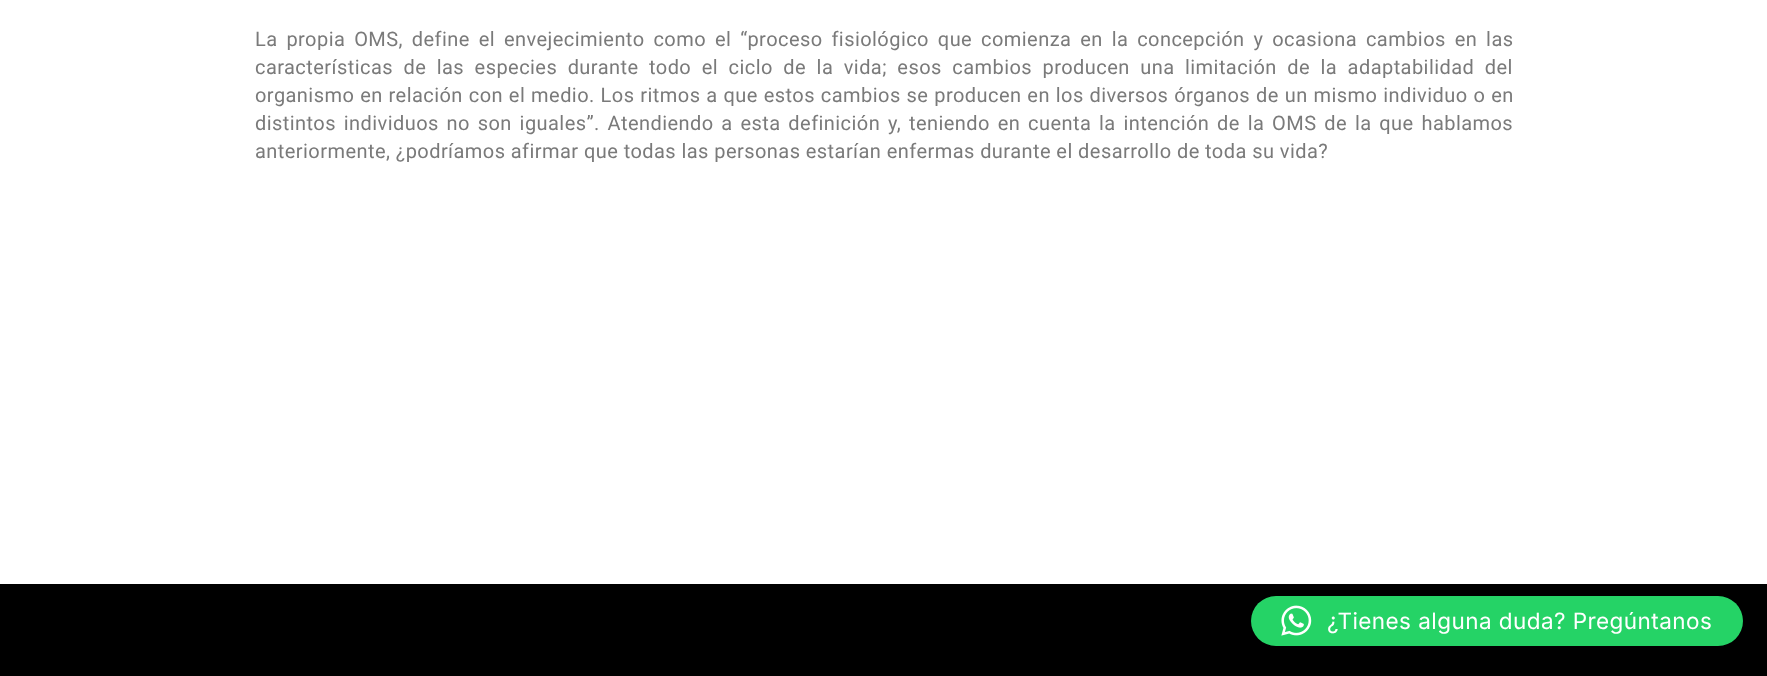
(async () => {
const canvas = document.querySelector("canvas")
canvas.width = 1767
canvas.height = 676
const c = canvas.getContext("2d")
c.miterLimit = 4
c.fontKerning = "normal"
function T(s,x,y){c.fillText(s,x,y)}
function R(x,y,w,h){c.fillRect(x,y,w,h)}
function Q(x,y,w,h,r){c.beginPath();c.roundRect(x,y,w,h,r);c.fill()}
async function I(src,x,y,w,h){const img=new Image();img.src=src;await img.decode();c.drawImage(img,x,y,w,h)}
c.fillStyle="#000"
R(0,0,1767,676)
c.fillStyle="#fff"
R(0,0,1767,584)
c.letterSpacing="0.44px"
c.wordSpacing="3.5px"
c.font="20px Roboto"
c.fillStyle="#7a7a7a"
T("La propia OMS, define el envejecimiento como el “proceso fisiológico que comienza en la concepción y ocasiona cambios en las",255,46)
c.wordSpacing="5.1px"
T("características de las especies durante todo el ciclo de la vida; esos cambios producen una limitación de la adaptabilidad del",255,74)
c.wordSpacing="0.5px"
T("organismo en relación con el medio. Los ritmos a que estos cambios se producen en los diversos órganos de un mismo individuo o en",255,102)
c.wordSpacing="2.4px"
T("distintos individuos no son iguales”. Atendiendo a esta definición y, teniendo en cuenta la intención de la OMS de la que hablamos",255,130)
c.wordSpacing="0px"
T("anteriormente, ¿podríamos afirmar que todas las personas estarían enfermas durante el desarrollo de toda su vida?",255,158)
c.fillStyle="#25d366"
Q(1251,596,492,50,25)
await I("1.png",1281,605,31,31)
c.font="22.5px Inter"
c.fillStyle="#fff"
T("¿Tienes alguna duda? Pregúntanos",1327,629)
})()
